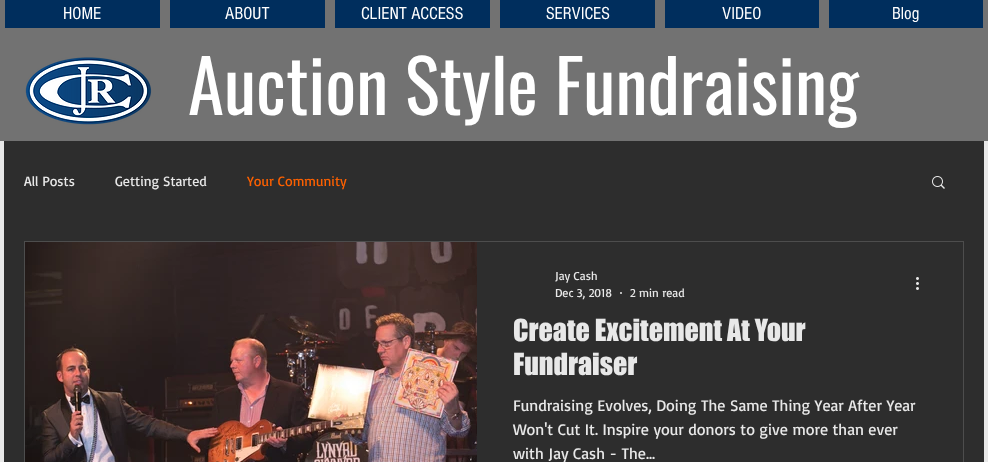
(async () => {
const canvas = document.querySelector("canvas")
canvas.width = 988
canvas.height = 462
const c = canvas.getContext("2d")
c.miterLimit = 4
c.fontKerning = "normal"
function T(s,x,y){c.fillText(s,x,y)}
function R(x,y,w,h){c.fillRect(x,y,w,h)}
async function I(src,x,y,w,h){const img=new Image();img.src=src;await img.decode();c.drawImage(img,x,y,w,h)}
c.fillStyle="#e8e8e8"
R(0,0,988,462)
c.fillStyle="#727272"
R(0,0,988,141)
c.fillStyle="#002e5d"
R(5,0,155,28)
c.font="18px 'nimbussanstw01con'"
c.fillStyle="#fff"
T("HOME",63,19)
c.fillStyle="#002e5d"
R(170,0,155,28)
c.fillStyle="#fff"
T("ABOUT",225,19)
c.fillStyle="#002e5d"
R(335,0,155,28)
c.fillStyle="#fff"
T("CLIENT ACCESS",361,19)
c.fillStyle="#002e5d"
R(500,0,155,28)
c.fillStyle="#fff"
T("SERVICES",546,19)
c.fillStyle="#002e5d"
R(665,0,154,28)
c.fillStyle="#fff"
T("VIDEO",722,19)
c.fillStyle="#002e5d"
R(829,0,154,28)
c.fillStyle="#fff"
T("Blog",892,19)
await I("1.png",25,57,127,68)
c.font="73px Oswald"
T("Auction Style Fundraising",188,115)
c.fillStyle="#2d2d2d"
R(4,141,980,321)
c.font="14px Basic"
c.fillStyle="#e8e8e8"
T("All Posts",24,186)
T("Getting Started",115,186)
c.fillStyle="#fc6000"
T("Your Community",247,186)
await I("2.png",932,176,13,13)
c.strokeStyle="#4d4d4d"
c.strokeRect(24.5,241.5,939,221)
await I("3.png",25,242,452,220)
c.font="12px Basic"
c.fillStyle="#e8e8e8"
T("Jay Cash",555,280)
T("Dec 3, 2018",555,297)
c.beginPath()
c.arc(621,293,1,0,7)
c.fill()
T("2 min read",630,297)
await I("4.png",916,277,3,13)
c.font="28px 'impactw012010'"
T("Create Excitement At Your",513,341)
T("Fundraiser",513,375)
c.font="16px Basic"
T("Fundraising Evolves, Doing The Same Thing Year After Year",513,411)
T("Won't Cut It. Inspire your donors to give more than ever",513,435)
T("with Jay Cash - The...",513,459)
})()
